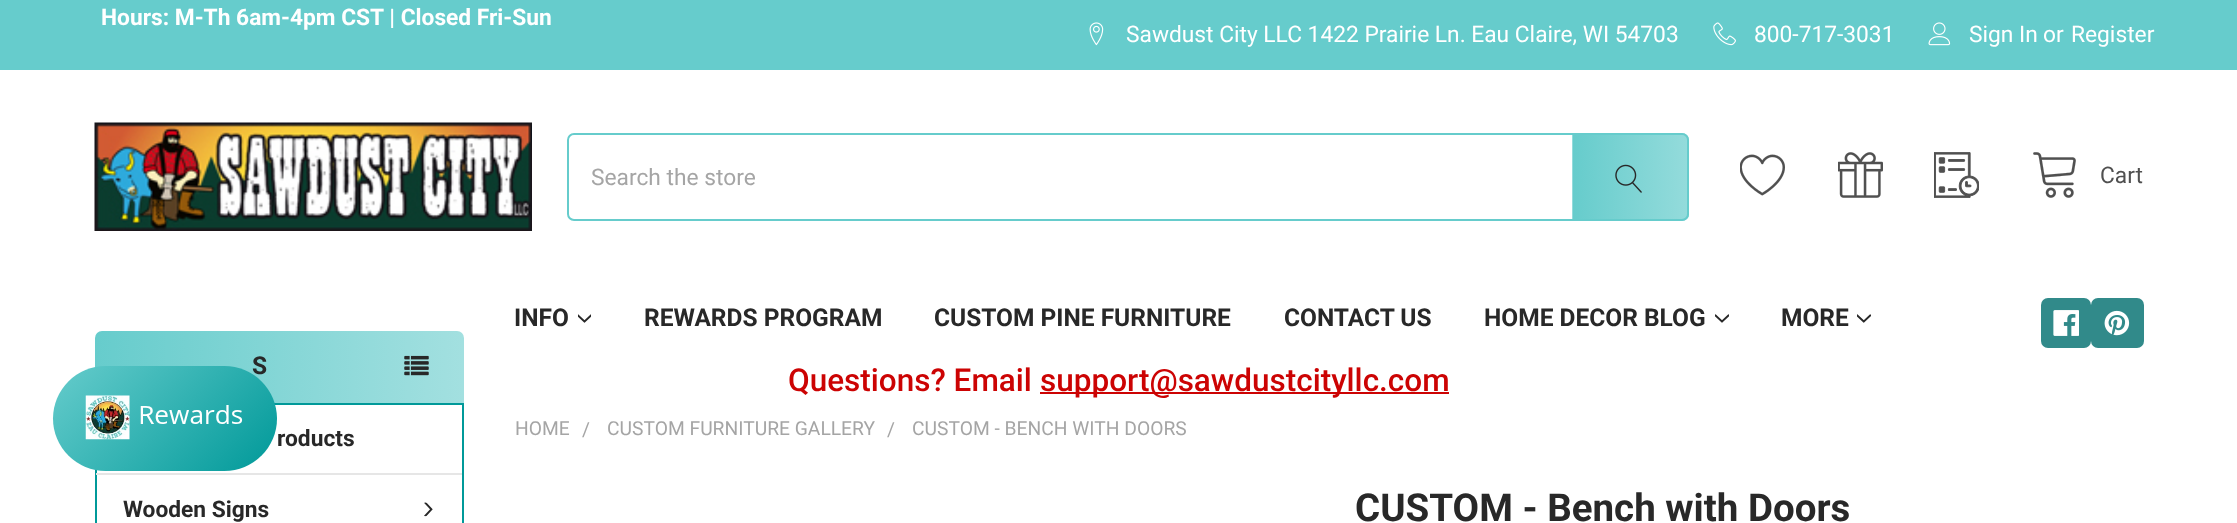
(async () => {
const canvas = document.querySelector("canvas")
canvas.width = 2237
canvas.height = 523
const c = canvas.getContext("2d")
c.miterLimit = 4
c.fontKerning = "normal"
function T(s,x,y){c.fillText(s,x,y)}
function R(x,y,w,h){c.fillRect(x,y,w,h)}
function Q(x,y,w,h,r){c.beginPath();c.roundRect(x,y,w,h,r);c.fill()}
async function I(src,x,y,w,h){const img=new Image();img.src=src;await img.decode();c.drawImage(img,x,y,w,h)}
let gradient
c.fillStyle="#fff"
R(0,0,2237,523)
c.fillStyle="#6cc"
R(0,0,2237,70)
c.font="bold 22.75px Roboto"
c.fillStyle="#fff"
T("Hours: M-Th 6am-4pm CST | Closed Fri-Sun",101,25)
await I("1.png",1089,22,15,24)
c.font="22.75px Roboto"
T("Sawdust City LLC 1422 Prairie Ln. Eau Claire, WI 54703",1126,42)
await I("2.png",1713,22,23,24)
T("800-717-3031",1754,42)
await I("3.png",1928,22,23,24)
T("Sign In",1969,42)
T("or",2043,42)
T("Register",2071,42)
await I("4.png",94,122,438,109)
c.beginPath()
c.roundRect(568,134,1120,86,6)
c.strokeStyle="#6cc"
c.lineWidth=2
c.stroke()
c.fillStyle="#a5a5a5"
T("Search the store",591,185)
gradient = c.createLinearGradient(1460,177,1573,177)
gradient.addColorStop(0,"#6cc")
gradient.addColorStop(1,"#66ccccb3")
c.fillStyle = gradient
R(1572,133,1,88)
c.save()
c.beginPath()
c.roundRect(1572,133,117,88,[0,7,7,0])
c.clip()
gradient = c.createLinearGradient(1573,177,1687,177)
gradient.addColorStop(0,"#6cc")
gradient.addColorStop(1,"#66ccccb3")
c.fillStyle = gradient
R(1573,133,114,88)
gradient = c.createLinearGradient(1687,177,1801,177)
gradient.addColorStop(0,"#6cc")
gradient.addColorStop(1,"#66ccccb3")
c.fillStyle = gradient
R(1687,133,2,88)
c.restore()
await I("5.png",1615,164,27,29)
await I("6.png",1740,154,45,42)
await I("7.png",1838,152,45,46)
await I("8.png",1934,152,45,46)
await I("9.png",2033,152,43,46)
c.fillStyle="#505050"
T("Cart",2100,183)
c.font="bold 24.5px Roboto"
c.fillStyle="#282828"
T("INFO",514,326)
await I("10.png",578,314,13,9)
T("REWARDS PROGRAM",644,326)
T("CUSTOM PINE FURNITURE",934,326)
T("CONTACT US",1284,326)
T("HOME DECOR BLOG",1484,326)
await I("11.png",1715,314,14,9)
T("MORE",1781,326)
await I("12.png",1857,314,14,9)
c.fillStyle="#318a8a"
Q(2041,298,50,50,7)
await I("13.png",2053,310,26,26)
Q(2091,298,53,50,7)
await I("14.png",2104,310,26,26)
c.font="500 31.5px Roboto"
c.fillStyle="#cc0303"
T("Questions? Email",788,391)
R(1040,392,409,2)
T("support@sawdustcityllc.com",1040,391)
gradient = c.createLinearGradient(94,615,464,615)
gradient.addColorStop(0,"#6cc")
gradient.addColorStop(1,"#a3e0e0")
c.fillStyle = gradient
Q(95,331,369,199,7)
c.font="bold 24.5px Roboto"
c.fillStyle="#282828"
T("S",252,374)
await I("15.png",404,355,25,21)
c.fillStyle="#fff"
c.beginPath()
c.rect(96,404,367,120)
c.fill()
c.strokeStyle="#099"
c.stroke()
c.font="bold 22.75px Roboto"
c.fillStyle="#282828"
T("roducts",277,446)
c.fillStyle="#e6e6e6"
R(96,473,366,2)
c.fillStyle="#282828"
T("Wooden Signs",123,517)
await I("16.png",424,502,9,15)
c.font="19.25px Roboto"
c.fillStyle="#a5a5a5"
T("HOME",515,435)
T("/",582,436)
T("CUSTOM FURNITURE GALLERY",607,435)
T("/",887,436)
T("CUSTOM - BENCH WITH DOORS",912,435)
c.font="bold 38.5px Roboto"
c.fillStyle="#282828"
T("CUSTOM - Bench with Doors",1355,521)
gradient = c.createLinearGradient(82,336,247,501)
gradient.addColorStop(0,"#6cc")
gradient.addColorStop(1,"#099")
c.fillStyle = gradient
Q(53,366,224,105,52.5)
await I("17.png",85,395,158,45)
})()
